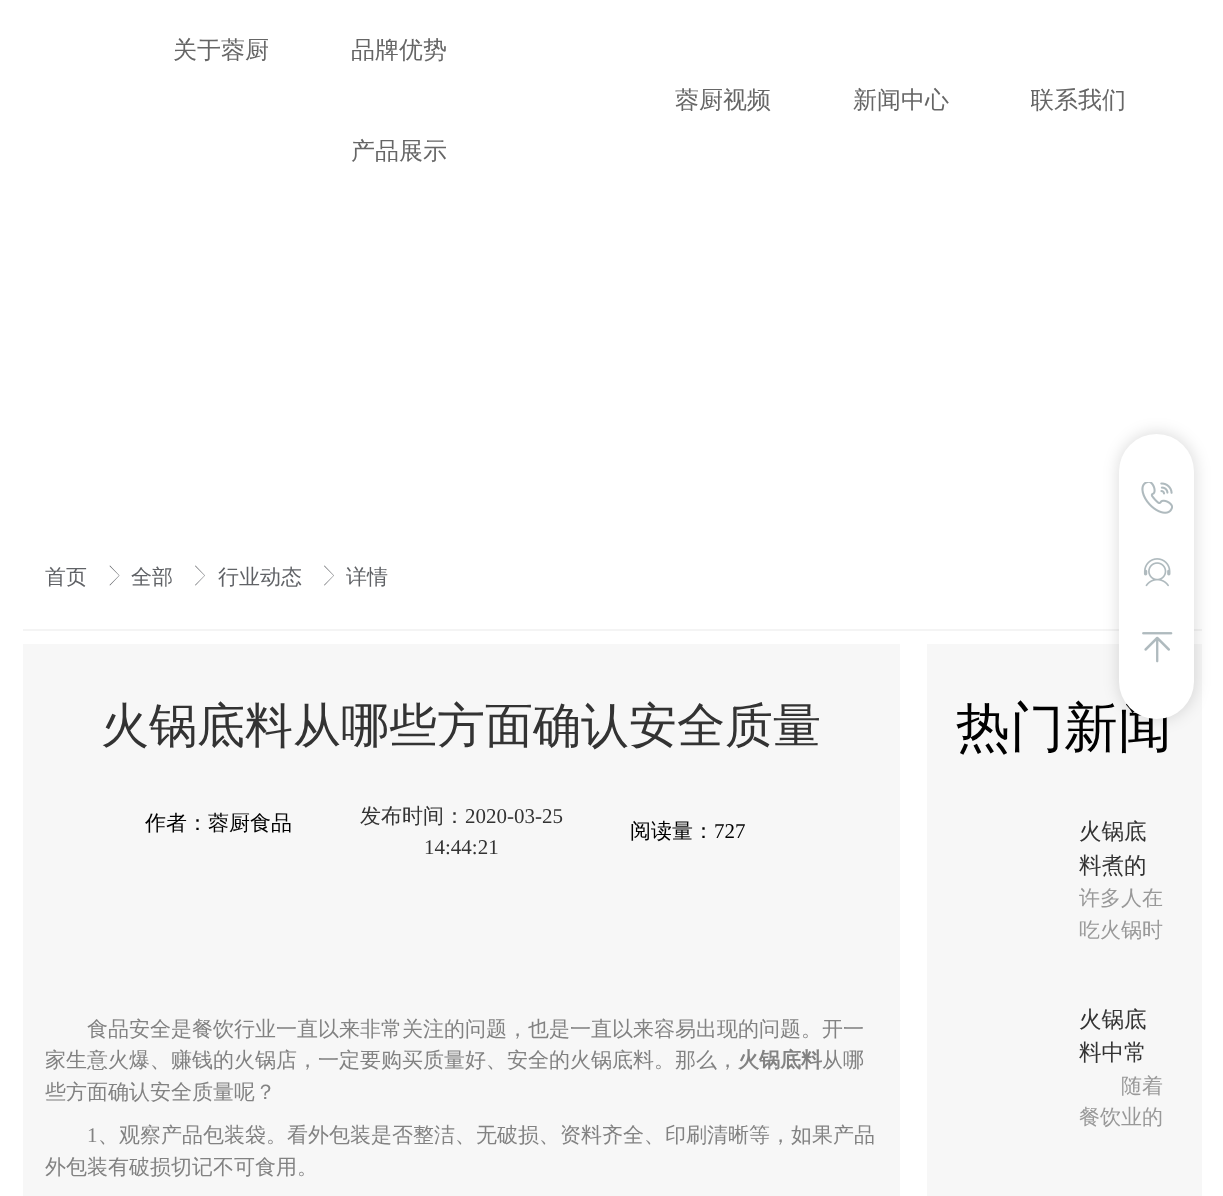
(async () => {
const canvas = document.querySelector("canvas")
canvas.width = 1223
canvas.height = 1196
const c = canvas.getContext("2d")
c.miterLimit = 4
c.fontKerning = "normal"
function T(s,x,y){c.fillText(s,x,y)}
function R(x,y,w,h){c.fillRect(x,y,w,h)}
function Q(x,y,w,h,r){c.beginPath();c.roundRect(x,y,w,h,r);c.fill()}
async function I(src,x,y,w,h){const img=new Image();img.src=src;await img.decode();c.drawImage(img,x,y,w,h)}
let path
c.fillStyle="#fff"
R(0,0,1223,1196)
c.font="500 24px WenQuanYi Zen Hei"
c.fillStyle="#666"
T("关于蓉厨",173,58)
T("品牌优势",351,58)
T("产品展示",351,159)
T("蓉厨视频",675,108)
T("新闻中心",853,108)
c.save()
c.beginPath()
c.rect(1031,83,96,36)
c.clip()
T("联系我们",1030,108)
c.restore()
c.fillStyle="#f4f4f4"
R(23,629,1179,2)
c.fillStyle="#f7f7f7"
R(927,644,275,552)
c.fillStyle="#00000021"
c.filter="blur(7.5px)"
c.beginPath()
c.roundRect(1118,432,78,288,39)
c.fill()
c.filter="none"
c.font="500 54px WenQuanYi Zen Hei"
c.fillStyle="#000"
T("热门新闻",956,746)
c.fillStyle="#fff"
Q(1119,434,75,285,37.5)
await I("1.png",1141,482,32,32)
await I("2.png",1143,558,28,29)
await I("3.png",1142,632,31,31)
c.font="500 21px WenQuanYi Zen Hei"
c.fillStyle="#606266"
T("首页",45,584)
path = new Path2D("M119.5 575.5l-9.5-10l-.5 .5l9.5 9.5l-9.5 9.5l.5 .5z")
c.fill(path)
T("全部",131,584)
path = new Path2D("M205 575.5l-9.5-10l-.5 .5l9.5 9.5l-9.5 9.5l.5 .5z")
c.fill(path)
T("行业动态",218,584)
path = new Path2D("M334 575.5l-9.5-10l-.5 .5l9.5 9.5l-9.5 9.5l.5 .5z")
c.fill(path)
T("详情",346,584)
c.fillStyle="#f7f7f7"
R(23,644,877,552)
c.font="500 48px WenQuanYi Zen Hei"
c.fillStyle="#333"
T("火锅底料从哪些方面确认安全质量",101,742)
c.font="500 21px WenQuanYi Zen Hei"
c.fillStyle="#000"
T("作者：蓉厨食品",145,830)
c.fillStyle="#333"
T("发布时间：",360,823)
c.font="21px Liberation Serif"
T("2020-03-25",465,823)
T("14:44:21",424,854)
c.font="500 21px WenQuanYi Zen Hei"
c.fillStyle="#000"
T("阅读量：",630,838)
c.font="21px Liberation Serif"
T("727",714,838)
c.font="500 21px WenQuanYi Zen Hei"
c.fillStyle="#828282"
T("食品安全是餐饮行业一直以来非常关注的问题，也是一直以来容易出现的问题。开一",87,1036)
T("家生意火爆、赚钱的火锅店，一定要购买质量好、安全的火锅底料。那么，",45,1067)
c.font="bold 21px WenQuanYi Zen Hei"
T("火锅底料",738,1067)
c.font="500 21px WenQuanYi Zen Hei"
T("从哪",822,1067)
T("些方面确认安全质量呢？",45,1099)
c.font="21px Liberation Serif"
T("1",87,1142)
c.font="500 21px WenQuanYi Zen Hei"
T("、观察产品包装袋。看外包装是否整洁、无破损、资料齐全、印刷清晰等，如果产品",98,1142)
T("外包装有破损切记不可食用。",45,1174)
c.font="500 22.5px WenQuanYi Zen Hei"
c.fillStyle="#333"
T("火锅底",1079,839)
T("料煮的",1079,873)
c.font="500 21px WenQuanYi Zen Hei"
c.fillStyle="#999"
T("许多人在",1079,905)
T("吃火锅时",1079,937)
c.font="500 22.5px WenQuanYi Zen Hei"
c.fillStyle="#333"
T("火锅底",1079,1027)
T("料中常",1079,1060)
c.font="500 21px WenQuanYi Zen Hei"
c.fillStyle="#999"
T("随着",1121,1093)
T("餐饮业的",1079,1124)
})()
